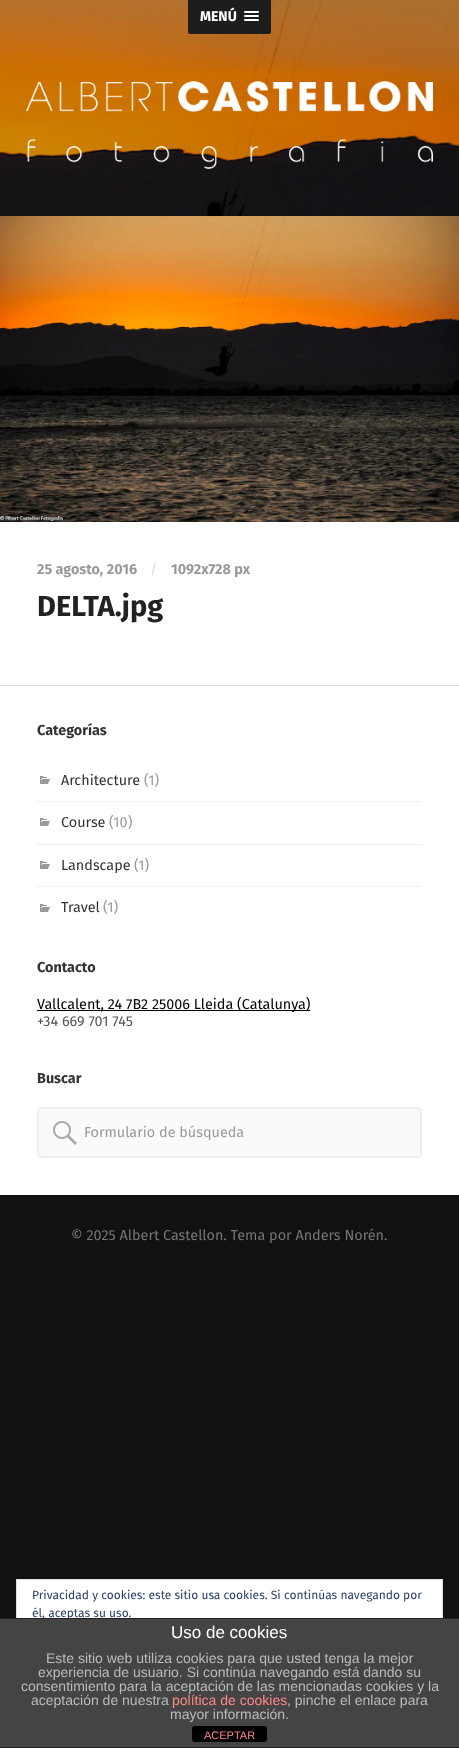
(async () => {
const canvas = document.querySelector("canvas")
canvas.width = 459
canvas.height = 1748
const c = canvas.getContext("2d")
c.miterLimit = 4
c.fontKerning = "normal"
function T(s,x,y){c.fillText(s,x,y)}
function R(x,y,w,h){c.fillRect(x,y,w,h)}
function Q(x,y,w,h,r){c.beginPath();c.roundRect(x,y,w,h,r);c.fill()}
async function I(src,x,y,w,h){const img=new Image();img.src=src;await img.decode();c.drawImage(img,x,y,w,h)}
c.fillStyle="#111"
R(0,0,459,1748)
await I("1.png",0,0,459,216)
c.fillStyle="#1d1d1d"
c.beginPath()
c.roundRect(188,0,83,34,[0,0,2,2])
c.fill()
c.font="bold 14px Fira Sans"
c.fillStyle="#fff"
T("MENÚ",200,21)
Q(244,11,15,2,1)
Q(244,15,15,2,1)
Q(244,19,15,2,1)
await I("2.png",26,81,407,88)
R(0,522,459,673)
await I("3.png",0,216,459,306)
c.font="bold 14.4px Fira Sans"
c.fillStyle="#999"
T("25 agosto, 2016",37,574)
c.font="14.4px Fira Sans"
c.fillStyle="#ddd"
T("/",150,574)
c.font="bold 14.4px Fira Sans"
c.fillStyle="#999"
T("1092x728 px",171,574)
c.font="bold 29px Fira Sans"
c.fillStyle="#222"
T("DELTA.jpg",37,616)
c.fillStyle="#ddd"
R(0,685,459,1)
c.font="bold 14.4px Fira Sans"
c.fillStyle="#333"
T("Categorías",37,735)
c.fillStyle="#eee"
R(37,801,385,1)
await I("4.png",40,776,10,8)
c.font="14.4px Fira Sans"
c.fillStyle="#333"
T("Architecture",61,785)
c.fillStyle="#999"
T("(1)",144,785)
c.fillStyle="#eee"
R(37,844,385,1)
await I("4.png",40,818,10,8)
c.fillStyle="#333"
T("Course",61,827)
c.fillStyle="#999"
T("(10)",109,827)
c.fillStyle="#eee"
R(37,886,385,1)
await I("4.png",40,861,10,8)
c.fillStyle="#333"
T("Landscape",61,870)
c.fillStyle="#999"
T("(1)",134,870)
await I("4.png",40,904,10,8)
c.fillStyle="#333"
T("Travel",61,912)
c.fillStyle="#999"
T("(1)",103,912)
c.font="bold 14.4px Fira Sans"
c.fillStyle="#333"
T("Contacto",37,972)
c.fillStyle="#000"
R(37,1010,273,1)
c.font="14.4px Fira Sans"
T("Vallcalent, 24 7B2 25006 Lleida (Catalunya)",37,1009)
c.fillStyle="#555"
T("+34 669 701 745",37,1026)
c.font="bold 14.4px Fira Sans"
c.fillStyle="#333"
T("Buscar",37,1083)
c.fillStyle="#fafafa"
c.beginPath()
c.roundRect(38,1108,383,49,4)
c.fill()
c.strokeStyle="#eee"
c.lineWidth=2
c.stroke()
await I("5.png",53,1121,24,24)
c.font="14.4px Fira Sans"
c.fillStyle="#999"
T("Formulario de búsqueda",84,1137)
c.fillStyle="#767676"
T("© 2025 Albert Castellon. Tema por Anders Norén.",71,1240)
c.fillStyle="#fff"
R(17,1580,425,38)
c.strokeStyle="#dedede"
c.lineWidth=1
c.strokeRect(16.5,1579.5,426,152)
c.font="12px Fira Sans"
c.fillStyle="#2e4467"
T("Privacidad y cookies: este sitio usa cookies. Si continúas navegando por",32,1599)
T("él, aceptas su uso.",32,1617)
c.fillStyle="#444"
R(0,1619,459,128)
c.fillStyle="#222"
R(0,1618,459,1)
R(0,1747,459,1)
c.font="17px Liberation Sans"
c.fillStyle="#fff"
T("Uso de cookies",171,1638)
c.font="14px Liberation Sans"
c.fillStyle="#bbb"
T("Este sitio web utiliza cookies para que usted tenga la mejor",46,1663)
T("experiencia de usuario. Si continúa navegando está dando su",38,1677)
T("consentimiento para la aceptación de las mencionadas cookies y la",21,1691)
T("aceptación de nuestra",31,1705)
c.fillStyle="#f88"
T("política de cookies",172,1705)
c.fillStyle="#bbb"
T(", pinche el enlace para",287,1705)
T("mayor información.",170,1719)
c.fillStyle="#000"
Q(192,1726,75,16,3)
c.font="11px Liberation Sans"
c.fillStyle="#f88"
T("ACEPTAR",204,1739)
})()
